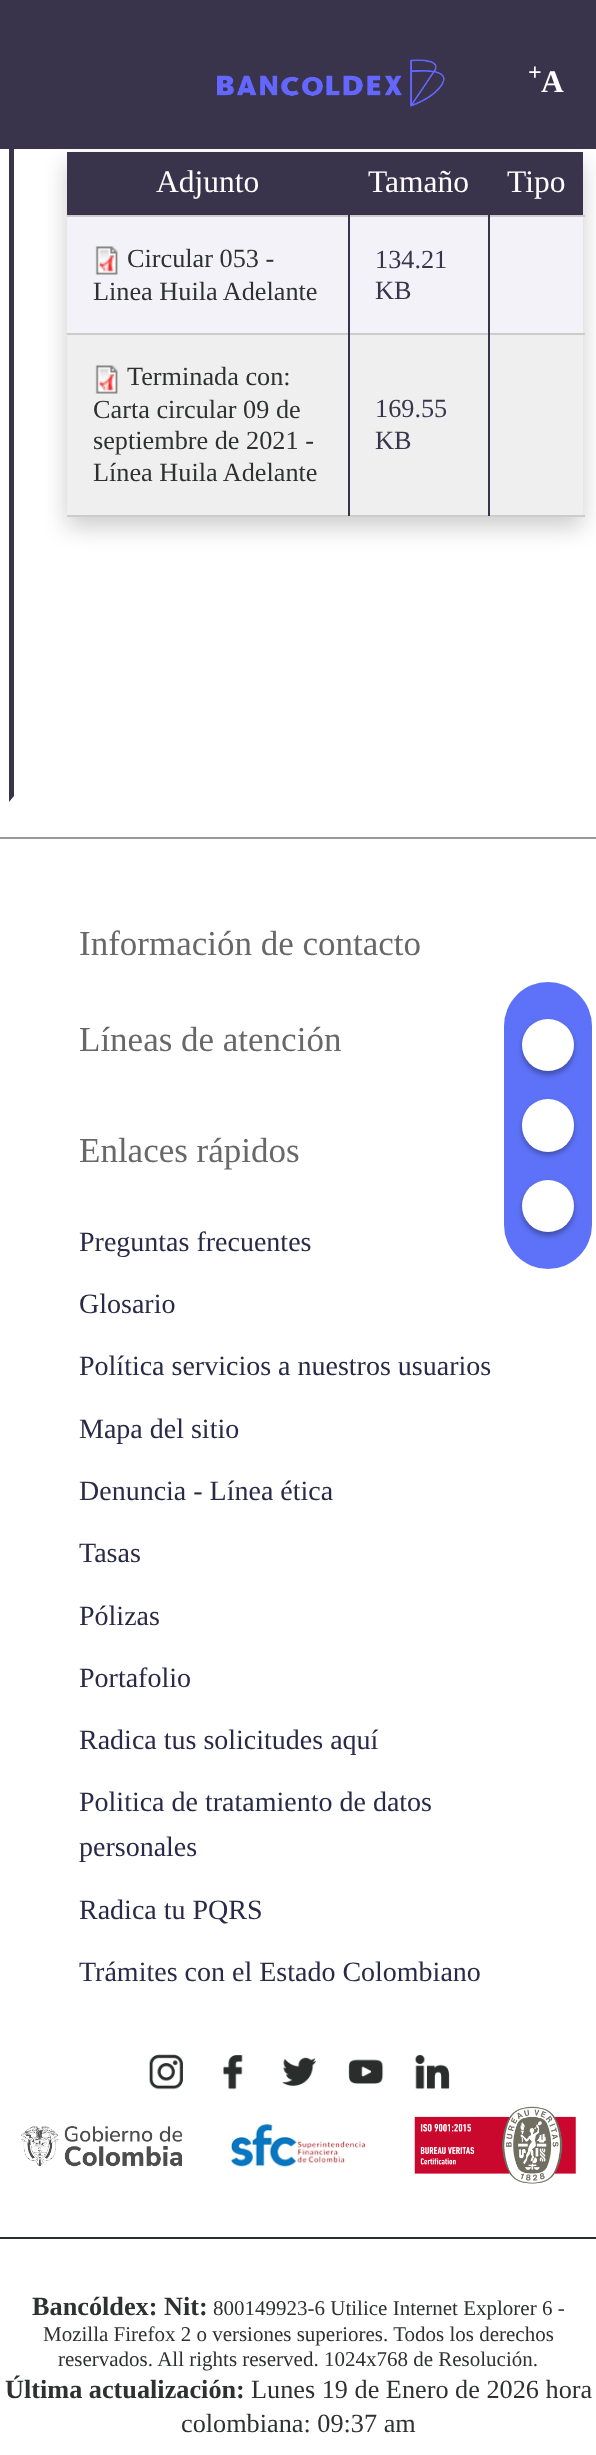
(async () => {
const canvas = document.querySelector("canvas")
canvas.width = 596
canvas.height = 2455
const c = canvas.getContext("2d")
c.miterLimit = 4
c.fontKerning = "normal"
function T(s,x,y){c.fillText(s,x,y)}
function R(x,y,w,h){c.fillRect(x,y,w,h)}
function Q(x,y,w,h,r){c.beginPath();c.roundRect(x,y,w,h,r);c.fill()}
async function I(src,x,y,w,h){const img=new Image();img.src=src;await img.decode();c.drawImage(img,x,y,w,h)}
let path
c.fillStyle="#fff"
R(0,0,596,2455)
c.fillStyle="#39344b"
path = new Path2D("M9 802v-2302l5 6v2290z")
c.fill(path)
c.fillStyle="#00000033"
c.filter="blur(11.5px)"
c.beginPath()
c.rect(67,163,516,364)
c.fill()
c.filter="none"
c.fillStyle="#39344b"
R(0,0,596,149)
await I("1.png",217,59,228,48)
c.font="bold 24px Liberation Serif"
c.fillStyle="#fff"
T("+",528,80)
c.font="bold 31.5px Liberation Serif"
T("A",541,92)
c.fillStyle="#39344b"
R(67,152,516,63)
c.font="31.5px Liberation Serif"
c.fillStyle="#fff"
T("Adjunto",156,192)
T("Tamaño",368,192)
T("Tipo",507,192)
c.fillStyle="#ccc"
R(67,215,518,2)
c.fillStyle="#f3f2f8"
R(67,217,516,116)
c.fillStyle="#ccc"
R(67,333,518,2)
await I("2.png",95,246,23,29)
c.font="26.25px Liberation Serif"
c.fillStyle="#2e3130"
T("Circular 053 -",127,267)
T("Linea Huila Adelante",93,300)
c.fillStyle="#39344b"
T("134.21",375,268)
T("KB",375,299)
c.fillStyle="#efefef"
R(67,335,516,180)
c.fillStyle="#ccc"
R(67,515,518,2)
await I("3.png",95,365,23,29)
c.fillStyle="#2e3130"
T("Terminada con:",127,385)
T("Carta circular 09 de",93,418)
T("septiembre de 2021 -",93,449)
T("Línea Huila Adelante",93,481)
c.fillStyle="#39344b"
R(348,215,2,301)
T("169.55",375,417)
T("KB",375,449)
R(488,215,2,301)
c.fillStyle="#5d72f8"
Q(504,982,88,287,44)
c.fillStyle="#0000004d"
c.filter="blur(2.5px)"
c.beginPath()
c.roundRect(522,1022,52,53,26)
c.fill()
c.filter="none"
c.fillStyle="#fff"
c.beginPath()
c.arc(548,1045,26,0,7)
c.fill()
c.fillStyle="#0000004d"
c.filter="blur(2.5px)"
c.beginPath()
c.roundRect(522,1103,52,52,26)
c.fill()
c.filter="none"
c.fillStyle="#fff"
Q(522,1099,52,53,26)
c.fillStyle="#0000004d"
c.filter="blur(2.5px)"
c.beginPath()
c.roundRect(522,1183,52,53,26)
c.fill()
c.filter="none"
c.fillStyle="#fff"
c.beginPath()
c.arc(548,1206,26,0,7)
c.fill()
c.fillStyle="#9a9a9a"
R(0,837,596,2)
c.font="35px Liberation Serif"
c.fillStyle="#686868"
T("Información de contacto",79,955)
T("Líneas de atención",79,1051)
T("Enlaces rápidos",79,1162)
c.font="28px Liberation Serif"
c.fillStyle="#292a48"
T("Preguntas frecuentes",79,1251)
T("Glosario",79,1313)
T("Política servicios a nuestros usuarios",79,1375)
T("Mapa del sitio",79,1438)
T("Denuncia - Línea ética",79,1500)
T("Tasas",79,1562)
T("Pólizas",79,1625)
T("Portafolio",79,1687)
T("Radica tus solicitudes aquí",79,1749)
T("Politica de tratamiento de datos",79,1811)
T("personales",79,1856)
T("Radica tu PQRS",79,1919)
T("Trámites con el Estado Colombiano",79,1981)
await I("4.png",149,2054,34,36)
await I("5.png",223,2055,20,35)
await I("6.png",282,2057,35,29)
await I("7.png",348,2059,36,25)
await I("8.png",414,2054,36,36)
await I("9.png",21,2126,161,41)
await I("10.png",230,2124,135,43)
await I("11.png",414,2106,162,78)
c.fillStyle="#292e2d"
R(0,2237,596,2)
c.font="bold 26.25px Liberation Serif"
c.fillStyle="#2e3130"
T("Bancóldex: Nit:",32,2315)
c.font="21px Liberation Serif"
T("800149923-6 Utilice Internet Explorer 6 -",213,2315)
T("Mozilla Firefox 2 o versiones superiores. Todos los derechos",43,2341)
T("reservados. All rights reserved. 1024x768 de Resolución.",58,2366)
c.font="bold 26.25px Liberation Serif"
T("Última actualización:",5,2398)
c.font="26.25px Liberation Serif"
T("Lunes 19 de Enero de 2026 hora",251,2398)
T("colombiana: 09:37 am",181,2432)
})()
